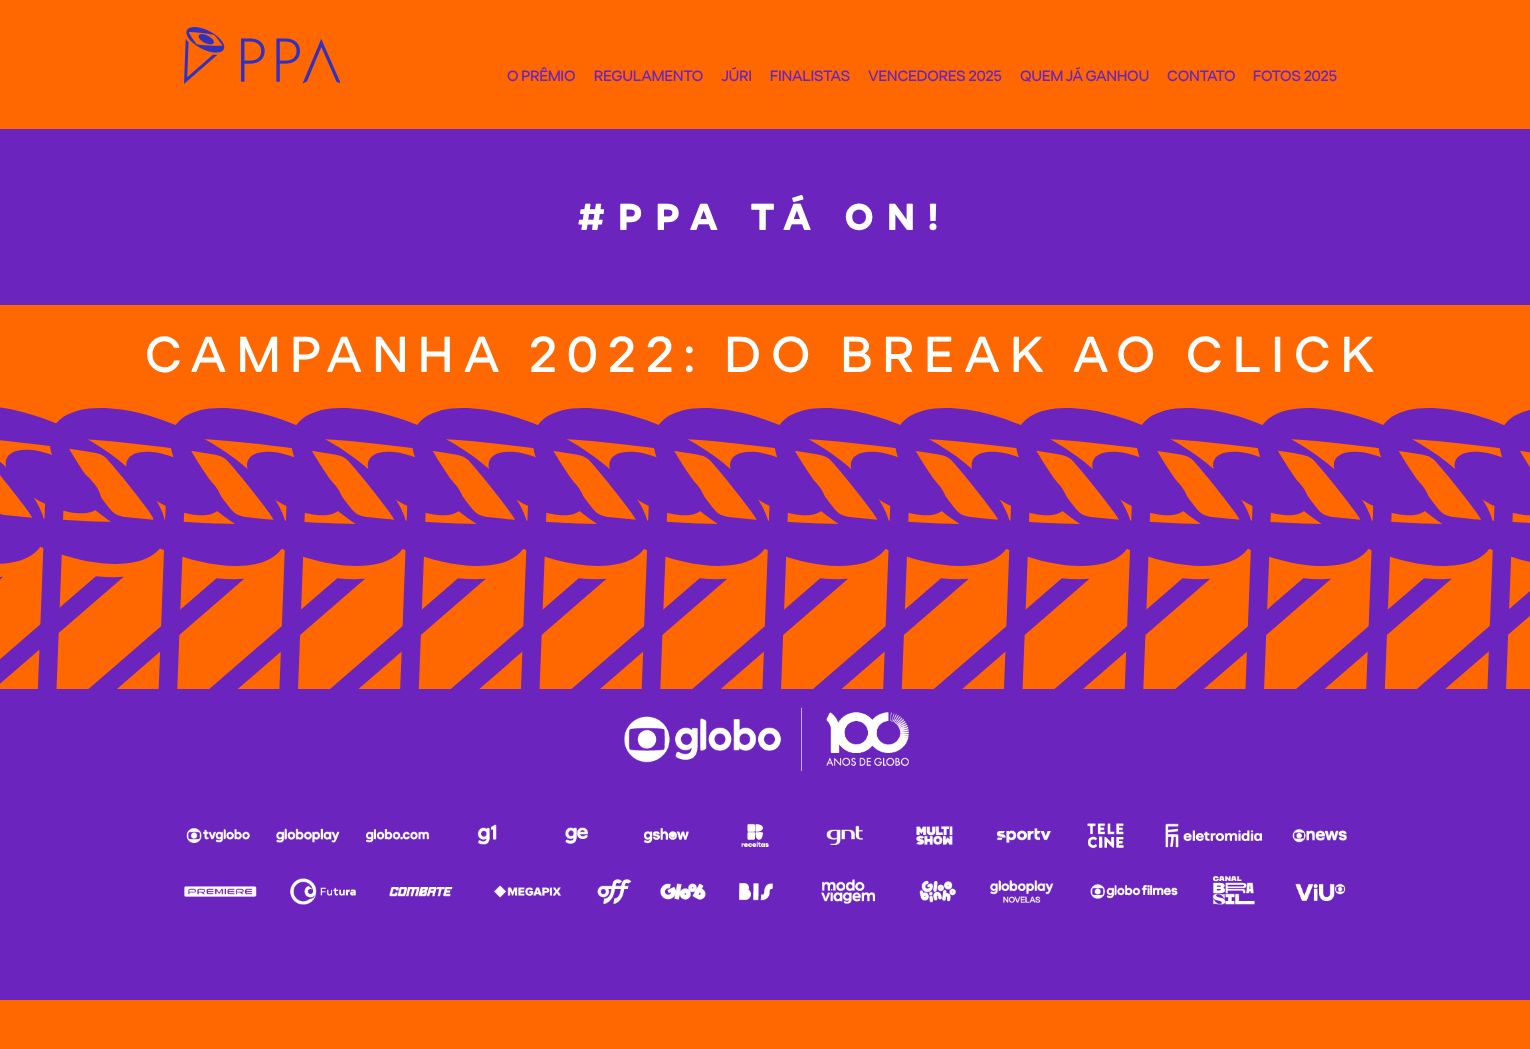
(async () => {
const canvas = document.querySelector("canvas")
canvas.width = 1530
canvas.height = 1049
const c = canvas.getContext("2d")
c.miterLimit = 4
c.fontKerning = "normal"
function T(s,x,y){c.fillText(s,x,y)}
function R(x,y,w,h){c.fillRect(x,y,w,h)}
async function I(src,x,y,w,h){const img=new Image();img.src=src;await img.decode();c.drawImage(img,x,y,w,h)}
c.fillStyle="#ff6700"
R(0,0,1530,1049)
await I("1.png",184,27,156,57)
c.font="16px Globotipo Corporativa"
c.fillStyle="#6b24bd"
T("O PRÊMIO",507,81)
T("REGULAMENTO",594,81)
T("JÚRI",721,81)
T("FINALISTAS",770,81)
T("VENCEDORES 2025",868,81)
T("QUEM JÁ GANHOU",1020,81)
T("CONTATO",1167,81)
T("FOTOS 2025",1253,81)
R(0,129,1530,176)
c.letterSpacing="13.6px"
c.font="bold 40px Globotipo Corporativa"
c.fillStyle="#fff"
T("#PPA TÁ ON!",578,230)
c.letterSpacing="10.8px"
c.font="54px Globotipo Corporativa"
T("CAMPANHA 2022: DO BREAK AO CLICK",145,372)
c.fillStyle="#6b24bd"
R(0,689,1530,311)
await I("2.png",0,407,1530,282)
await I("3.png",184,707,1163,198)
})()
